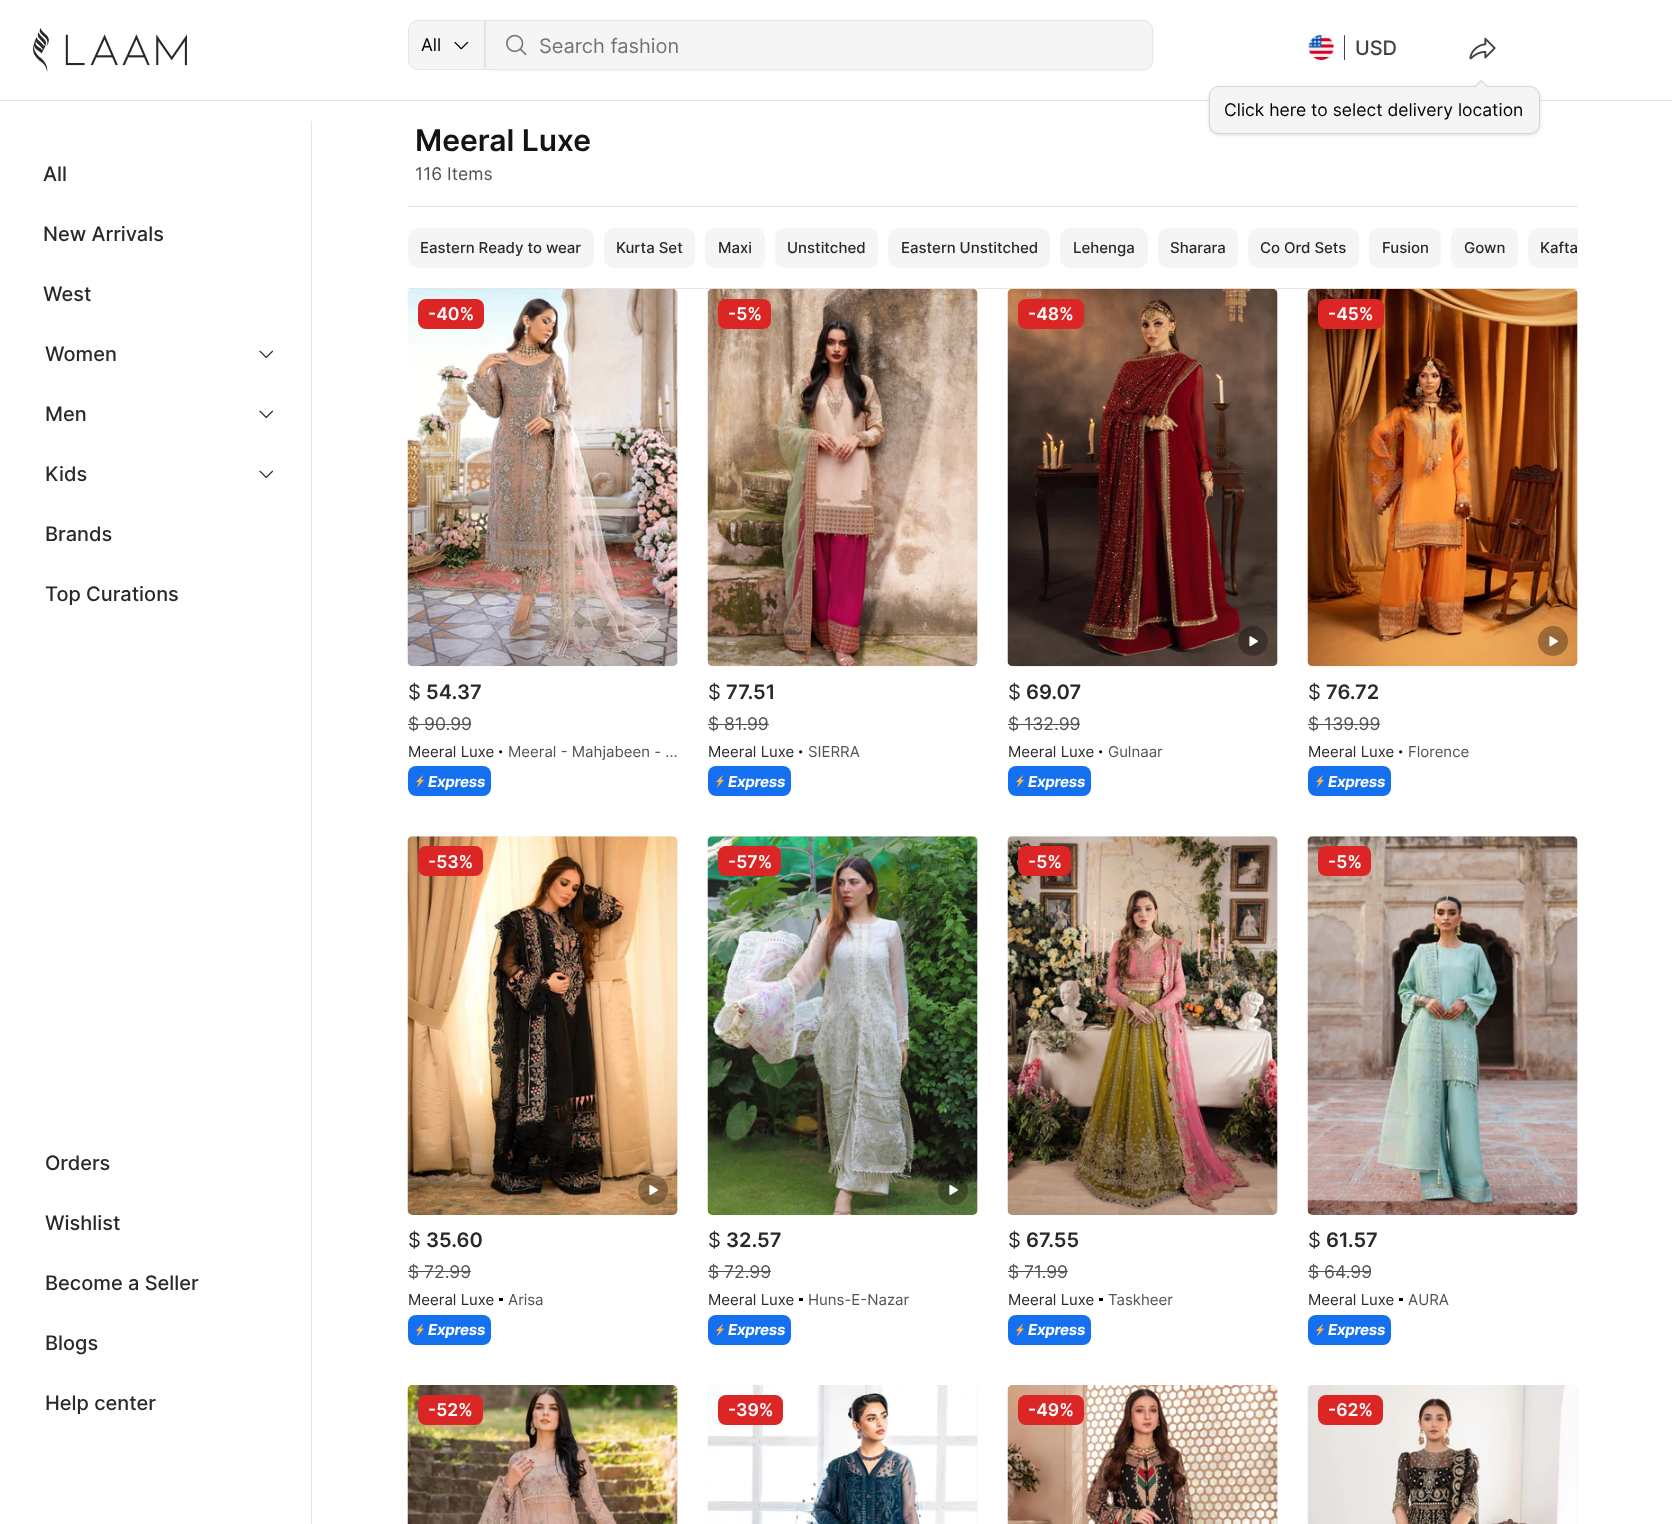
(async () => {
const canvas = document.querySelector("canvas")
canvas.width = 1672
canvas.height = 1524
const c = canvas.getContext("2d")
c.miterLimit = 4
c.fontKerning = "normal"
function T(s,x,y){c.fillText(s,x,y)}
function R(x,y,w,h){c.fillRect(x,y,w,h)}
function Q(x,y,w,h,r){c.beginPath();c.roundRect(x,y,w,h,r);c.fill()}
async function I(src,x,y,w,h){const img=new Image();img.src=src;await img.decode();c.drawImage(img,x,y,w,h)}
c.fillStyle="#fff"
R(0,0,1672,1524)
c.fillStyle="#e5e5e5"
R(0,100,1672,1)
await I("1.png",33,28,154,44)
c.fillStyle="#f5f5f5"
c.beginPath()
c.roundRect(408.5,20.5,76,49,[9.5,0,0,9.5])
c.fill()
c.strokeStyle="#e5e5e5"
c.stroke()
c.font="17.5px Inter"
c.fillStyle="#000"
T("All",421,51)
await I("2.png",454,41,15,9)
c.fillStyle="#1414140d"
c.filter="blur(1px)"
c.beginPath()
c.roundRect(485,21,668,50,10)
c.fill()
c.filter="none"
c.fillStyle="#f5f5f5"
c.beginPath()
c.roundRect(485.5,20.5,667,49,[0,9.5,9.5,0])
c.fill()
c.stroke()
await I("3.png",506,34,21,22)
c.font="20px Inter"
c.fillStyle="#737373"
T("Search fashion",539,53)
await I("4.png",1469,37,27,23)
await I("5.png",1308,35,26,25)
c.fillStyle="#424242"
Q(1344,35,1,25,.5)
c.font="500 20px Inter"
T("USD",1355,55)
c.fillStyle="#1414140f"
c.filter="blur(1px)"
c.beginPath()
c.roundRect(1209,88,331,47,10)
c.fill()
c.filter="none"
c.fillStyle="#1414141a"
c.filter="blur(2px)"
c.beginPath()
c.roundRect(1209,88,331,47,10)
c.fill()
c.filter="none"
c.fillStyle="#f5f5f5"
c.beginPath()
c.roundRect(1209.5,86.5,330,47,9.5)
c.fill()
c.strokeStyle="#d6d6d6"
c.stroke()
await I("6.png",1474,79,14,9)
c.font="17.5px Inter"
c.fillStyle="#000"
T("Click here to select delivery location",1224,116)
c.fillStyle="#e5e5e5"
R(311,121,1,1403)
c.font="500 20px Inter"
c.fillStyle="#292929"
T("All",43,181)
T("New Arrivals",43,241)
T("West",43,301)
T("Women",45,361)
await I("7.png",259,350,15,9)
T("Men",45,421)
await I("7.png",259,410,15,9)
T("Kids",45,481)
await I("7.png",259,470,15,9)
T("Brands",45,541)
T("Top Curations",45,601)
T("Orders",45,1170)
T("Wishlist",45,1230)
T("Become a Seller",45,1290)
T("Blogs",45,1350)
T("Help center",45,1410)
c.fillStyle="#e5e5e5"
R(408,206,1170,1)
c.font="600 30px Inter"
c.fillStyle="#141414"
T("Meeral Luxe",415,151)
c.font="17.5px Inter"
c.fillStyle="#525252"
T("116 Items",415,180)
c.fillStyle="#e5e5e5"
R(408,288,1170,1)
c.fillStyle="#f5f5f5"
Q(408,228,186,40,10)
c.font="500 15px Inter"
c.fillStyle="#292929"
T("Eastern Ready to wear",420,253)
c.fillStyle="#f5f5f5"
Q(604,228,91,40,10)
c.fillStyle="#292929"
T("Kurta Set",616,253)
c.fillStyle="#f5f5f5"
Q(705,228,60,40,10)
c.fillStyle="#292929"
T("Maxi",718,253)
c.fillStyle="#f5f5f5"
Q(775,228,103,40,10)
c.fillStyle="#292929"
T("Unstitched",787,253)
c.fillStyle="#f5f5f5"
Q(888,228,162,40,10)
c.fillStyle="#292929"
T("Eastern Unstitched",901,253)
c.fillStyle="#f5f5f5"
Q(1060,228,88,40,10)
c.fillStyle="#292929"
T("Lehenga",1073,253)
c.fillStyle="#f5f5f5"
Q(1158,228,80,40,10)
c.fillStyle="#292929"
T("Sharara",1170,253)
c.fillStyle="#f5f5f5"
Q(1248,228,111,40,10)
c.fillStyle="#292929"
T("Co Ord Sets",1260,253)
c.fillStyle="#f5f5f5"
Q(1369,228,72,40,10)
c.fillStyle="#292929"
T("Fusion",1382,253)
c.fillStyle="#f5f5f5"
Q(1451,228,67,40,10)
c.fillStyle="#292929"
T("Gown",1464,253)
c.fillStyle="#f5f5f5"
c.beginPath()
c.roundRect(1528,228,50,40,[10,0,0,10])
c.fill()
c.fillStyle="#292929"
T("Kafta",1540,253)
c.fillStyle="#f5f5f5"
Q(408,289,270,377,5)
await I("8.png",407,288,271,379)
c.fillStyle="#dc2626"
Q(418,299,66,30,8)
c.font="600 17.5px Inter"
c.fillStyle="#fff"
T("-40%",428,320)
c.font="20px Inter"
c.fillStyle="#292929"
T("$",408,699)
c.font="600 20px Inter"
T("54.37",426,699)
c.font="17.5px Inter"
c.fillStyle="#525252"
T("$ 90.99",408,730)
R(408,724,63,1)
c.font="15px Inter"
c.fillStyle="#292929"
T("Meeral Luxe",408,757)
await I("9.png",499,750,4,4)
c.fillStyle="#525252"
T("Meeral - Mahjabeen - ...",508,757)
c.fillStyle="#1570ef"
Q(408,766,83,30,8)
await I("10.png",416,775,8,13)
c.letterSpacing="-0.25px"
c.font="italic bold 15px Inter"
c.fillStyle="#fff"
T("Express",428,787)
c.fillStyle="#f5f5f5"
Q(708,289,270,377,5)
await I("11.png",707,288,271,379)
c.fillStyle="#dc2626"
Q(718,299,53,30,8)
c.letterSpacing="0px"
c.font="600 17.5px Inter"
c.fillStyle="#fff"
T("-5%",728,320)
c.font="20px Inter"
c.fillStyle="#292929"
T("$",708,699)
c.font="600 20px Inter"
T("77.51",726,699)
c.font="17.5px Inter"
c.fillStyle="#525252"
T("$ 81.99",708,730)
R(708,724,61,1)
c.font="15px Inter"
c.fillStyle="#292929"
T("Meeral Luxe",708,757)
await I("9.png",799,750,4,4)
c.fillStyle="#525252"
T("SIERRA",808,757)
c.fillStyle="#1570ef"
Q(708,766,83,30,8)
await I("10.png",716,775,8,13)
c.letterSpacing="-0.25px"
c.font="italic bold 15px Inter"
c.fillStyle="#fff"
T("Express",728,787)
c.fillStyle="#f5f5f5"
Q(1008,289,270,377,5)
await I("12.png",1007,288,271,379)
c.fillStyle="#dc2626"
Q(1018,299,66,30,8)
c.letterSpacing="0px"
c.font="600 17.5px Inter"
c.fillStyle="#fff"
T("-48%",1028,320)
c.fillStyle="#0000004d"
c.beginPath()
c.arc(1253,641,15,0,7)
c.fill()
await I("13.png",1249,636,9,11)
c.font="20px Inter"
c.fillStyle="#292929"
T("$",1008,699)
c.font="600 20px Inter"
T("69.07",1026,699)
c.font="17.5px Inter"
c.fillStyle="#525252"
T("$ 132.99",1008,730)
R(1008,724,72,1)
c.font="15px Inter"
c.fillStyle="#292929"
T("Meeral Luxe",1008,757)
await I("9.png",1099,750,4,4)
c.fillStyle="#525252"
T("Gulnaar",1108,757)
c.fillStyle="#1570ef"
Q(1008,766,83,30,8)
await I("10.png",1016,775,8,13)
c.letterSpacing="-0.25px"
c.font="italic bold 15px Inter"
c.fillStyle="#fff"
T("Express",1028,787)
c.fillStyle="#f5f5f5"
Q(1308,289,270,377,5)
await I("14.png",1307,288,271,379)
c.fillStyle="#dc2626"
Q(1318,299,66,30,8)
c.letterSpacing="0px"
c.font="600 17.5px Inter"
c.fillStyle="#fff"
T("-45%",1328,320)
c.fillStyle="#0000004d"
c.beginPath()
c.arc(1553,641,15,0,7)
c.fill()
await I("15.png",1549,636,9,11)
c.font="20px Inter"
c.fillStyle="#292929"
T("$",1308,699)
c.font="600 20px Inter"
T("76.72",1326,699)
c.font="17.5px Inter"
c.fillStyle="#525252"
T("$ 139.99",1308,730)
R(1308,724,72,1)
c.font="15px Inter"
c.fillStyle="#292929"
T("Meeral Luxe",1308,757)
await I("9.png",1399,750,4,4)
c.fillStyle="#525252"
T("Florence",1408,757)
c.fillStyle="#1570ef"
Q(1308,766,83,30,8)
await I("10.png",1316,775,8,13)
c.letterSpacing="-0.25px"
c.font="italic bold 15px Inter"
c.fillStyle="#fff"
T("Express",1328,787)
c.fillStyle="#f5f5f5"
Q(408,836,270,379,5)
await I("16.png",407,836,271,379)
c.fillStyle="#dc2626"
Q(418,846,65,30,8)
c.letterSpacing="0px"
c.font="600 17.5px Inter"
c.fillStyle="#fff"
T("-53%",428,868)
c.fillStyle="#0000004d"
c.beginPath()
c.arc(653,1190,15,0,7)
c.fill()
await I("17.png",649,1184,9,11)
c.font="20px Inter"
c.fillStyle="#292929"
T("$",408,1247)
c.font="600 20px Inter"
T("35.60",426,1247)
c.font="17.5px Inter"
c.fillStyle="#525252"
T("$ 72.99",408,1278)
R(408,1271,63,1)
c.font="15px Inter"
c.fillStyle="#292929"
T("Meeral Luxe",408,1305)
c.fillStyle="#000"
R(499,1298,4,3)
c.fillStyle="#525252"
T("Arisa",508,1305)
c.fillStyle="#1570ef"
Q(408,1315,83,30,8)
await I("18.png",416,1324,8,12)
c.letterSpacing="-0.25px"
c.font="italic bold 15px Inter"
c.fillStyle="#fff"
T("Express",428,1335)
c.fillStyle="#f5f5f5"
Q(708,836,270,379,5)
await I("19.png",707,836,271,379)
c.fillStyle="#dc2626"
Q(718,846,63,30,8)
c.letterSpacing="0px"
c.font="600 17.5px Inter"
c.fillStyle="#fff"
T("-57%",728,868)
c.fillStyle="#0000004d"
c.beginPath()
c.arc(953,1190,15,0,7)
c.fill()
await I("20.png",949,1184,9,11)
c.font="20px Inter"
c.fillStyle="#292929"
T("$",708,1247)
c.font="600 20px Inter"
T("32.57",726,1247)
c.font="17.5px Inter"
c.fillStyle="#525252"
T("$ 72.99",708,1278)
R(708,1271,63,1)
c.font="15px Inter"
c.fillStyle="#292929"
T("Meeral Luxe",708,1305)
c.fillStyle="#000"
R(799,1298,4,3)
c.fillStyle="#525252"
T("Huns-E-Nazar",808,1305)
c.fillStyle="#1570ef"
Q(708,1315,83,30,8)
await I("18.png",716,1324,8,12)
c.letterSpacing="-0.25px"
c.font="italic bold 15px Inter"
c.fillStyle="#fff"
T("Express",728,1335)
c.fillStyle="#f5f5f5"
Q(1008,836,270,379,5)
await I("21.png",1007,836,271,379)
c.fillStyle="#dc2626"
Q(1018,846,53,30,8)
c.letterSpacing="0px"
c.font="600 17.5px Inter"
c.fillStyle="#fff"
T("-5%",1028,868)
c.font="20px Inter"
c.fillStyle="#292929"
T("$",1008,1247)
c.font="600 20px Inter"
T("67.55",1026,1247)
c.font="17.5px Inter"
c.fillStyle="#525252"
T("$ 71.99",1008,1278)
R(1008,1271,60,1)
c.font="15px Inter"
c.fillStyle="#292929"
T("Meeral Luxe",1008,1305)
c.fillStyle="#000"
R(1099,1298,4,3)
c.fillStyle="#525252"
T("Taskheer",1108,1305)
c.fillStyle="#1570ef"
Q(1008,1315,83,30,8)
await I("18.png",1016,1324,8,12)
c.letterSpacing="-0.25px"
c.font="italic bold 15px Inter"
c.fillStyle="#fff"
T("Express",1028,1335)
c.fillStyle="#f5f5f5"
Q(1308,836,270,379,5)
await I("22.png",1307,836,271,379)
c.fillStyle="#dc2626"
Q(1318,846,53,30,8)
c.letterSpacing="0px"
c.font="600 17.5px Inter"
c.fillStyle="#fff"
T("-5%",1328,868)
c.font="20px Inter"
c.fillStyle="#292929"
T("$",1308,1247)
c.font="600 20px Inter"
T("61.57",1326,1247)
c.font="17.5px Inter"
c.fillStyle="#525252"
T("$ 64.99",1308,1278)
R(1308,1271,63,1)
c.font="15px Inter"
c.fillStyle="#292929"
T("Meeral Luxe",1308,1305)
c.fillStyle="#000"
R(1399,1298,4,3)
c.fillStyle="#525252"
T("AURA",1408,1305)
c.fillStyle="#1570ef"
Q(1308,1315,83,30,8)
await I("18.png",1316,1324,8,12)
c.letterSpacing="-0.25px"
c.font="italic bold 15px Inter"
c.fillStyle="#fff"
T("Express",1328,1335)
c.fillStyle="#f5f5f5"
Q(408,1385,270,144,5)
await I("23.png",407,1385,271,139)
c.fillStyle="#dc2626"
Q(418,1395,65,30,8)
c.letterSpacing="0px"
c.font="600 17.5px Inter"
c.fillStyle="#fff"
T("-52%",428,1416)
c.fillStyle="#f5f5f5"
Q(708,1385,270,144,5)
await I("24.png",707,1385,270,139)
c.fillStyle="#dc2626"
Q(718,1395,65,30,8)
c.fillStyle="#fff"
T("-39%",728,1416)
c.fillStyle="#f5f5f5"
Q(1008,1385,270,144,5)
await I("25.png",1007,1385,271,139)
c.fillStyle="#dc2626"
Q(1018,1395,66,30,8)
c.fillStyle="#fff"
T("-49%",1028,1416)
c.fillStyle="#f5f5f5"
Q(1308,1385,270,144,5)
await I("26.png",1307,1385,270,139)
c.fillStyle="#dc2626"
Q(1318,1395,65,30,8)
c.fillStyle="#fff"
T("-62%",1328,1416)
})()
